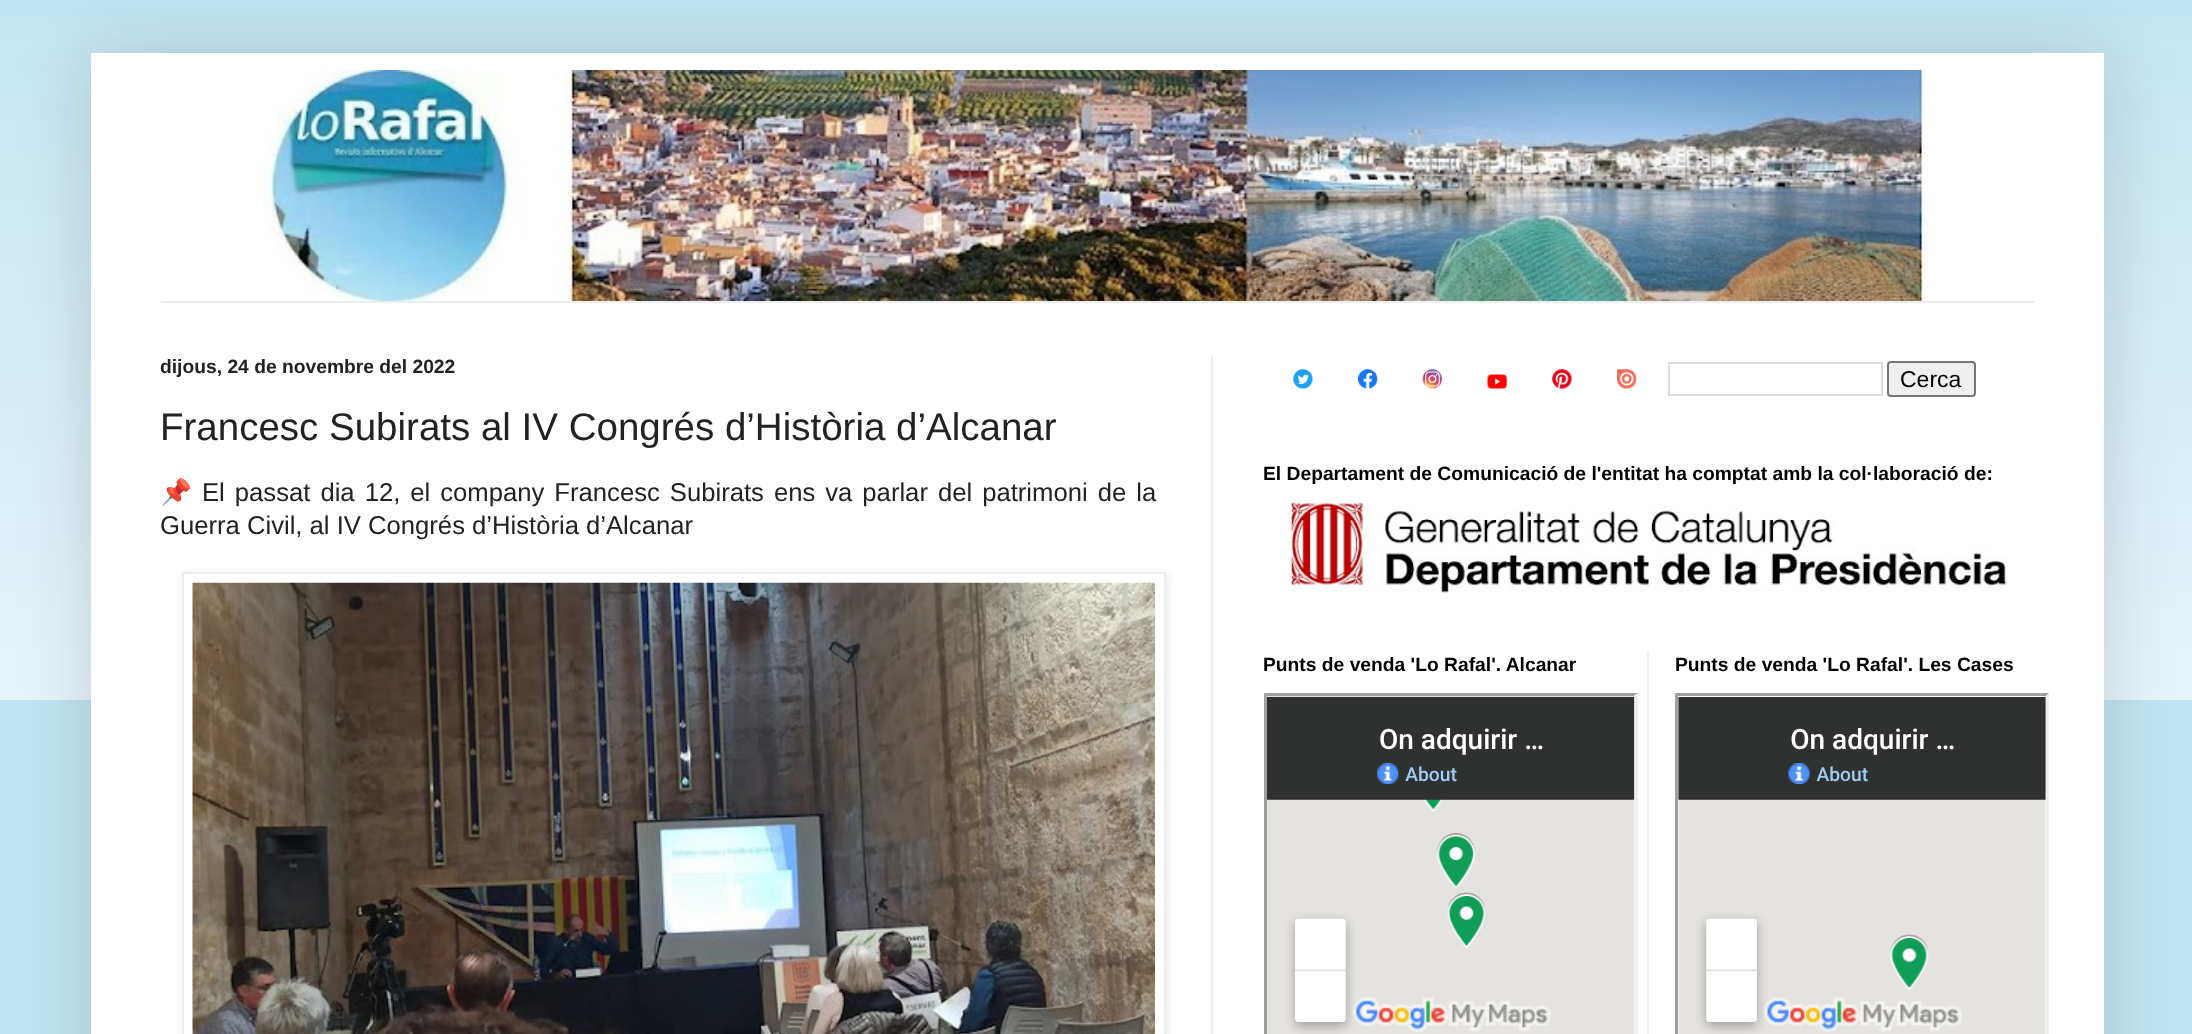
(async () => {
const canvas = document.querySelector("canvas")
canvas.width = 2192
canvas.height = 1034
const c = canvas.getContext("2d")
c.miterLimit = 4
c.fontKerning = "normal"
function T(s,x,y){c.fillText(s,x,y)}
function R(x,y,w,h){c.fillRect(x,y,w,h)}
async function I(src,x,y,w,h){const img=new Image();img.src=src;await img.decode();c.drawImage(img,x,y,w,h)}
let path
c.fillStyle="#c1e5f2"
R(0,0,2192,1034)
await I("1.png",0,18,2192,682)
c.fillStyle="#00000026"
c.filter="blur(35px)"
c.beginPath()
c.rect(91,53,2013,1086)
c.fill()
c.filter="none"
c.fillStyle="#fff"
R(91,53,2013,981)
await I("2.png",253,70,1676,231)
c.fillStyle="#eee"
R(161,301,1873,2)
R(1211,355,2,679)
c.font="bold 19.25px Liberation Sans"
c.fillStyle="#222"
T("dijous, 24 de novembre del 2022",160,373)
c.font="38.5px Liberation Sans"
T("Francesc Subirats al IV Congrés d’Història d’Alcanar",160,440)
c.font="25.65px Noto Color Emoji"
T("📌",160,501)
c.wordSpacing="2.9px"
c.font="25.65px Liberation Sans"
T("El passat dia 12, el company Francesc Subirats ens va parlar del patrimoni de la",202,501)
c.wordSpacing="0px"
T("Guerra Civil, al IV Congrés d’Història d’Alcanar",160,534)
c.fillStyle="#0000001a"
c.filter="blur(4.5px)"
c.beginPath()
c.rect(184,574,983,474)
c.fill()
c.filter="none"
c.fillStyle="#fff"
c.beginPath()
c.rect(183,573,982,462)
c.fill()
c.strokeStyle="#eee"
c.lineWidth=2
c.stroke()
await I("3.png",192,582,963,452)
await I("4.png",1293,369,20,20)
await I("5.png",1358,369,20,20)
await I("6.png",1422,369,20,20)
await I("7.png",1487,374,20,15)
await I("8.png",1552,369,20,20)
await I("9.png",1617,369,20,20)
c.strokeStyle="#ddd"
c.strokeRect(1669,363,213,32)
c.fillStyle="#efefef"
c.beginPath()
c.roundRect(1888,362,87,34,3)
c.fill()
c.strokeStyle="#767676"
c.stroke()
c.font="23px Liberation Sans"
c.fillStyle="#000"
T("Cerca",1900,387)
c.font="bold 19.25px Liberation Sans"
T("El Departament de Comunicació de l'entitat ha comptat amb la col·laboració de:",1263,480)
await I("10.png",1290,502,717,91)
T("Punts de venda 'Lo Rafal'. Alcanar",1263,671)
c.fillStyle="#9f9f9f"
path = new Path2D("M1264 693h374l-4 3h-367z")
c.fill(path)
path = new Path2D("M1264 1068v-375l3 3v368z")
c.fill(path)
c.fillStyle="#eee"
path = new Path2D("M1638 693v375l-4-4v-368z")
c.fill(path)
await I("11.png",1267,696,368,338)
R(1647,653,2,381)
c.fillStyle="#000"
T("Punts de venda 'Lo Rafal'. Les Cases",1675,671)
c.fillStyle="#9f9f9f"
path = new Path2D("M1675 693h374l-3 3h-368z")
c.fill(path)
path = new Path2D("M1675 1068v-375l3 3v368z")
c.fill(path)
await I("12.png",1678,696,368,338)
c.fillStyle="#eee"
path = new Path2D("M2049 693v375l-3-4v-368z")
c.fill(path)
})()
